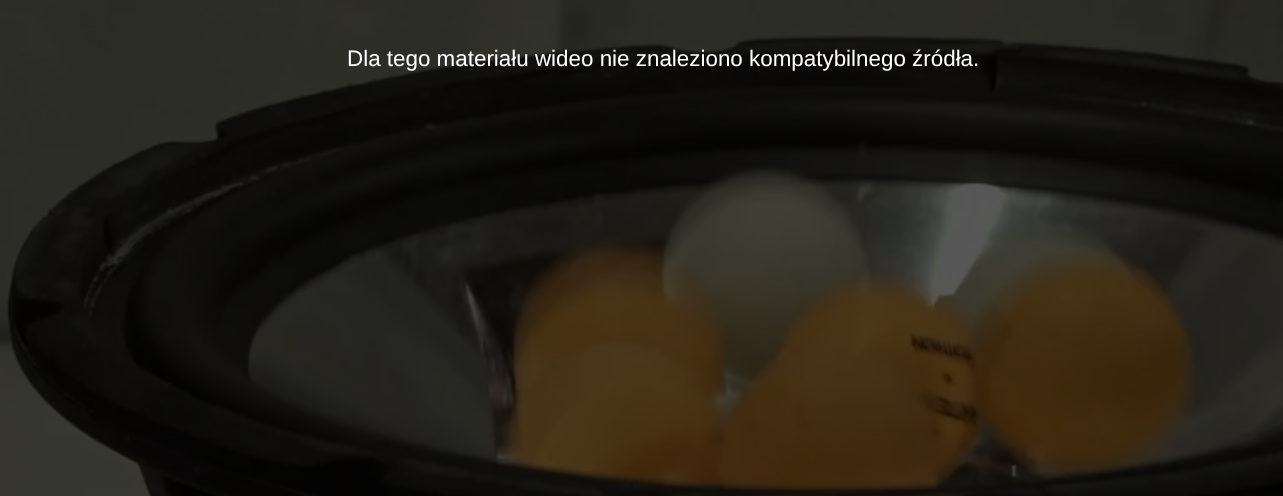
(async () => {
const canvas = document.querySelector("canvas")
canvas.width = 1283
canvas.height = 496
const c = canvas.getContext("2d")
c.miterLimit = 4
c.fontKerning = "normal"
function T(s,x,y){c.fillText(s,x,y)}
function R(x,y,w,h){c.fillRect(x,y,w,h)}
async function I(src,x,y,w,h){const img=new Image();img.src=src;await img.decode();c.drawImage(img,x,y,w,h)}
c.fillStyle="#fff"
R(0,0,1283,496)
await I("1.png",0,0,1283,496)
c.font="22.4px Liberation Sans"
T("Dla tego materiału wideo nie znaleziono kompatybilnego źródła.",347,66)
})()
